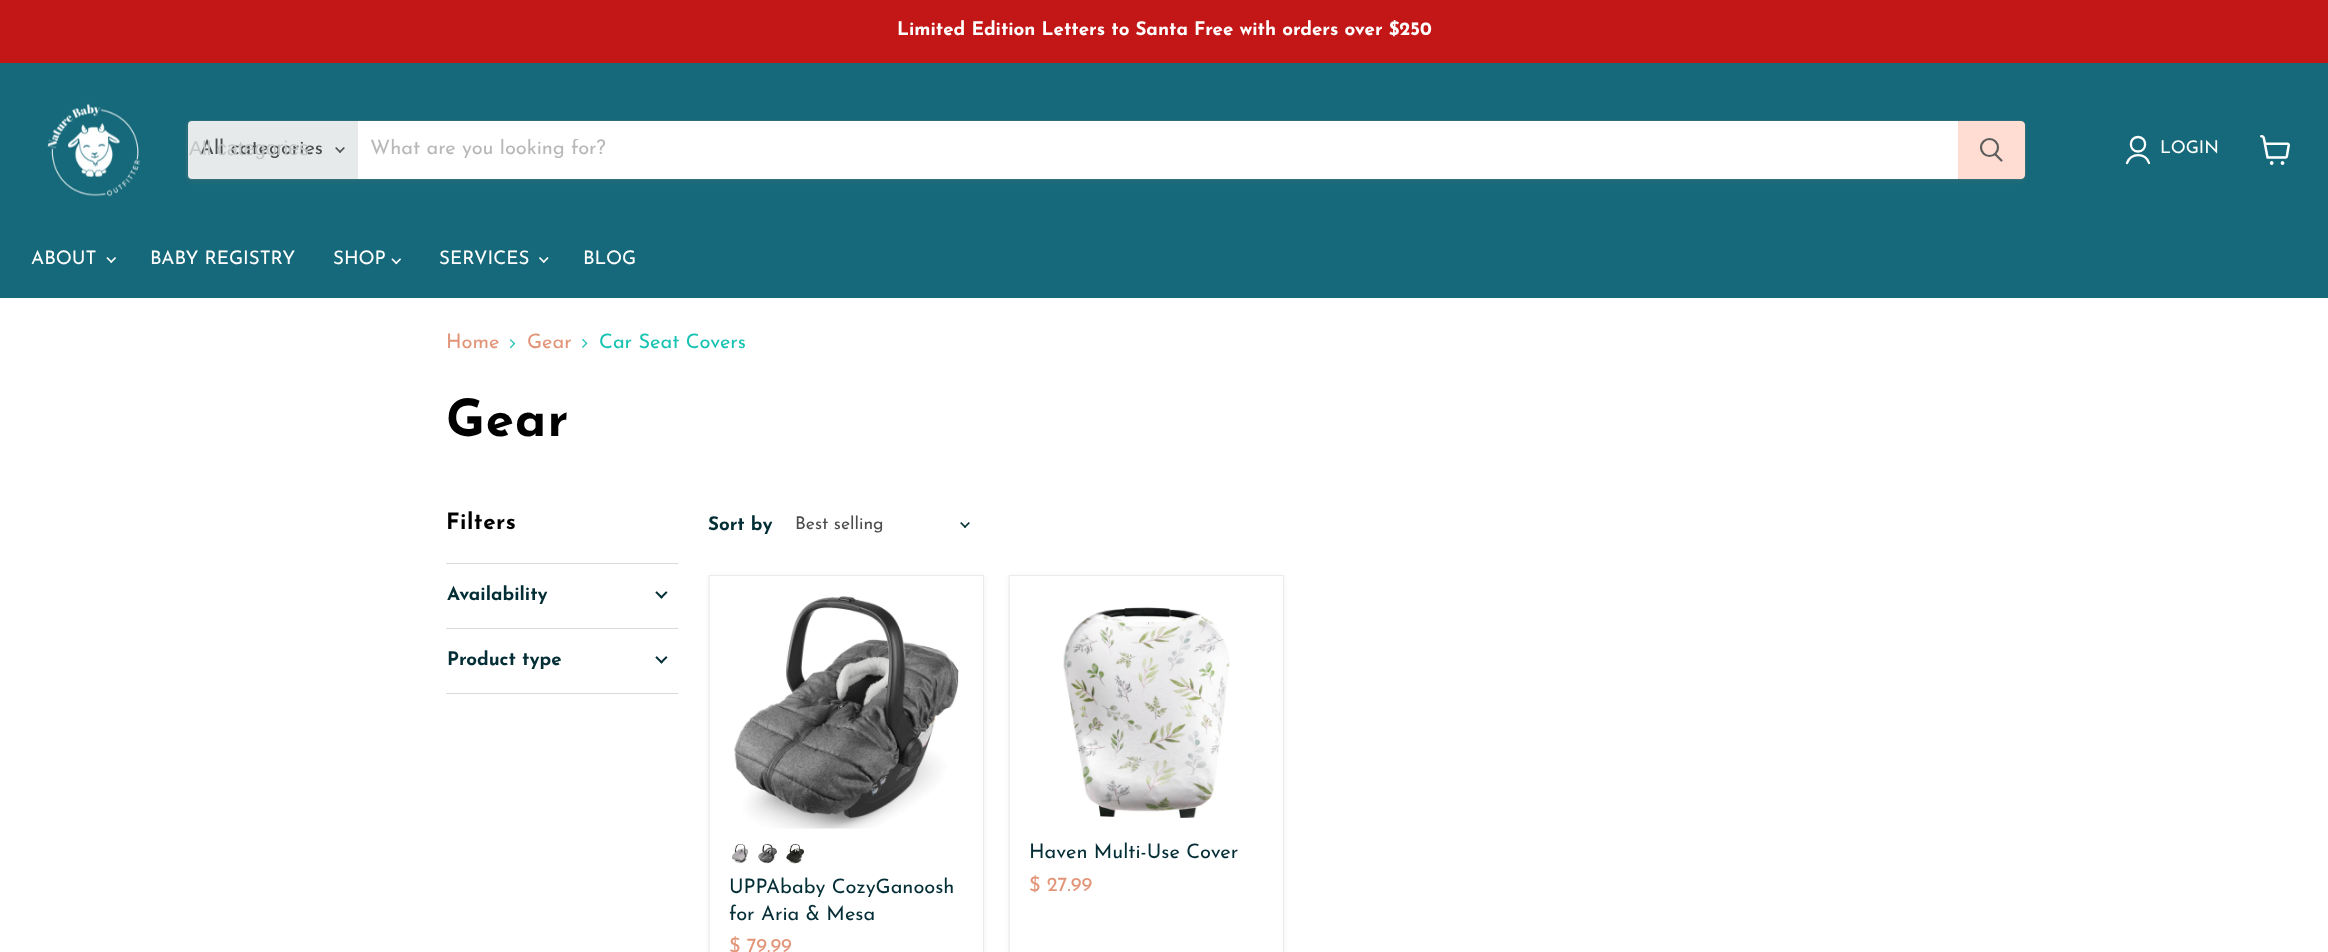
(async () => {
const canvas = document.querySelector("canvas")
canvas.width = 2328
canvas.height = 952
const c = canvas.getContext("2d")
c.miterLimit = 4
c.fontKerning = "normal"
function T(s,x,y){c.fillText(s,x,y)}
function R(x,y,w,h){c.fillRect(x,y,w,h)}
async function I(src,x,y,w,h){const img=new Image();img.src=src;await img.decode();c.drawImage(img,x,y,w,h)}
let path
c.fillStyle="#fff"
R(0,0,2328,952)
c.fillStyle="#c31717"
R(0,0,2328,63)
c.font="bold 18.75px Josefin Sans"
c.fillStyle="#fff"
T("Limited Edition Letters to Santa Free with orders over $250",897,35)
c.fillStyle="#16697a"
R(0,63,2328,235)
await I("1.png",47,103,94,94)
c.fillStyle="#8080801c"
c.filter="blur(2px)"
c.beginPath()
c.roundRect(186,123,1840,60,5)
c.fill()
c.filter="none"
c.beginPath()
c.roundRect(186.5,120.5,1839,59,4.5)
c.strokeStyle="#80808033"
c.stroke()
c.fillStyle="#e6eaeb"
c.beginPath()
c.roundRect(188,121,170,58,[4,0,0,4])
c.fill()
c.font="20px Josefin Sans"
c.fillStyle="#4d4d4d"
T("All categories",200,154)
c.font="20px Liberation Sans"
c.fillStyle="#c3c6c7"
T("All categories",189,155)
await I("2.png",335,147,10,6)
c.fillStyle="#fff"
R(358,121,1600,58)
c.save()
c.beginPath()
c.rect(370,139,1575,20)
c.clip()
c.font="20px Josefin Sans"
c.fillStyle="#b8b8b8"
T("What are you looking for?",370,154)
c.restore()
c.fillStyle="#ffddd2"
c.beginPath()
c.roundRect(1958.5,121.5,66,57,[0,3.5,3.5,0])
c.fill()
c.strokeStyle="#ffddd2"
c.stroke()
path = new Path2D("M2001.5 160.5l-6-6")
c.strokeStyle="#5c5c5c"
c.lineWidth=2.2
c.lineCap="round"
c.stroke(path)
c.beginPath()
c.arc(1989.5,147.5,8.5,0,7)
c.stroke()
path = new Path2D("M2138 151.5c9.5 0 9.5-14.5 0-14.5c-9.5 0-9.5 14.5 0 14.5zm11 11.5c-3.5-10.5-18-10.5-22 0")
c.strokeStyle="#fff"
c.lineWidth=2.3
c.lineJoin="round"
c.stroke(path)
c.font="17.5px Josefin Sans"
c.fillStyle="#fff"
T("LOGIN",2160,153)
await I("3.png",2260,135,30,30)
c.font="18.75px Josefin Sans"
T("ABOUT",31,264)
await I("4.png",106,257,10,6)
T("BABY REGISTRY",150,264)
T("SHOP",333,264)
await I("5.png",391,258,10,7)
T("SERVICES",439,264)
await I("6.png",539,257,10,6)
T("BLOG",583,264)
c.font="20px Josefin Sans"
c.fillStyle="#e29578"
T("Home",446,348)
await I("7.png",510,339,6,10)
T("Gear",527,348)
await I("8.png",582,338,6,10)
c.fillStyle="#17c3b2"
T("Car Seat Covers",599,348)
c.letterSpacing="1px"
c.font="bold 51px Josefin Sans"
c.fillStyle="#000"
T("Gear",446,436)
c.letterSpacing="0.5px"
c.font="bold 22.5px Josefin Sans"
T("Filters",446,529)
c.fillStyle="#d9d9d9"
R(446,563,232,1)
c.letterSpacing="0px"
c.font="bold 18.75px Josefin Sans"
c.fillStyle="#042e36"
T("Availability",447,600)
await I("9.png",655,591,13,8)
c.fillStyle="#d9d9d9"
R(446,628,232,1)
R(446,693,232,1)
c.fillStyle="#042e36"
T("Product type",447,665)
await I("10.png",655,656,13,8)
T("Sort by",708,530)
c.font="17.5px Josefin Sans"
c.fillStyle="#4d4d4d"
T("Best selling",795,529)
await I("11.png",960,522,10,6)
c.fillStyle="#8080801c"
c.filter="blur(2.5px)"
c.beginPath()
c.rect(1009,576,275,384)
c.fill()
c.filter="none"
c.fillStyle="#fff"
c.beginPath()
c.rect(1009.5,575.5,274,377)
c.fill()
c.strokeStyle="#ebebeb"
c.lineWidth=1
c.lineJoin="miter"
c.stroke()
await I("12.png",1063,607,167,211)
c.font="20px Josefin Sans"
c.fillStyle="#042e36"
T("Haven Multi-Use Cover",1029,858)
c.fillStyle="#e29578"
T("$ 27.99",1029,891)
c.fillStyle="#8080801c"
c.filter="blur(2.5px)"
c.beginPath()
c.rect(709,576,275,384)
c.fill()
c.filter="none"
c.fillStyle="#fff"
c.beginPath()
c.rect(709.5,575.5,274,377)
c.fill()
c.stroke()
await I("13.png",734,596,225,233)
await I("14.png",732,844,17,20)
await I("15.png",758,843,19,21)
await I("16.png",786,843,19,21)
c.fillStyle="#042e36"
T("UPPAbaby CozyGanoosh",729,893)
T("for Aria & Mesa",729,920)
c.fillStyle="#e29578"
T("$ 79.99",729,952)
})()
